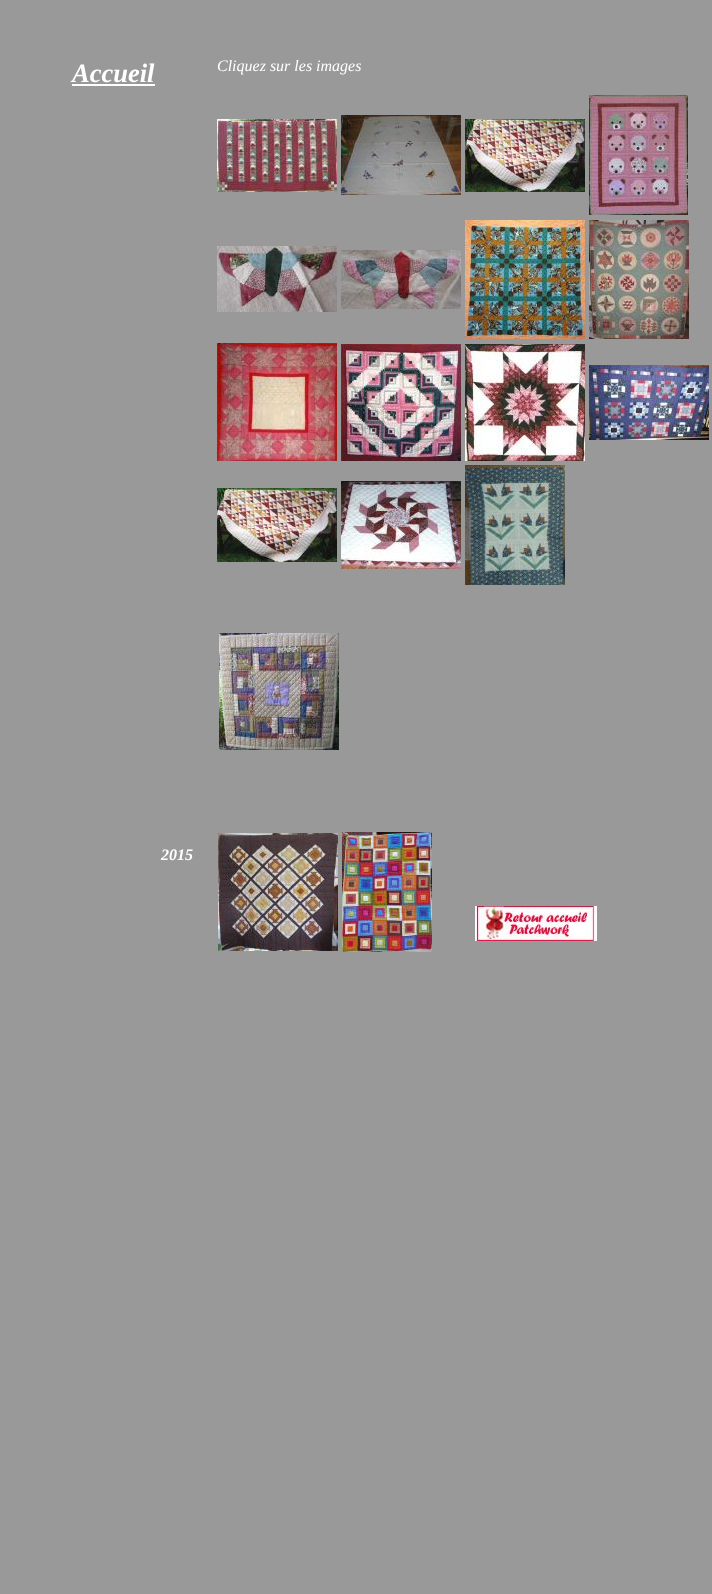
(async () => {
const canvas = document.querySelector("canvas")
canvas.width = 712
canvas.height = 1594
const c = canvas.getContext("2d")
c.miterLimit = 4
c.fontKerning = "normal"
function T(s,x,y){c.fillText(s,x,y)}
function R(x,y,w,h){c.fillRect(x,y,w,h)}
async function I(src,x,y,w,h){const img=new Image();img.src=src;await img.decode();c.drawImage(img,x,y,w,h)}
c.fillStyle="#999"
R(0,0,712,1594)
c.font="italic bold 26.5px Liberation Serif"
c.fillStyle="#fff"
T("Accueil",72,82)
R(72,84,83,2)
c.font="italic 16px Liberation Serif"
T("Cliquez sur les images",217,71)
await I("1.png",219,633,120,117)
await I("2.png",475,906,122,35)
await I("3.png",217,119,120,73)
await I("4.png",341,115,120,80)
await I("5.png",465,119,120,73)
await I("6.png",589,95,99,120)
await I("7.png",217,246,120,66)
await I("8.png",341,250,120,59)
await I("9.png",465,220,120,119)
await I("10.png",589,220,100,119)
await I("11.png",217,343,120,118)
await I("12.png",341,344,120,117)
await I("13.png",465,344,120,117)
await I("14.png",589,365,120,75)
await I("15.png",217,488,120,74)
await I("16.png",341,481,120,88)
await I("17.png",465,465,100,120)
c.font="italic bold 16px Liberation Serif"
T("2015",161,860)
await I("18.png",218,833,120,118)
await I("19.png",342,832,90,120)
})()
